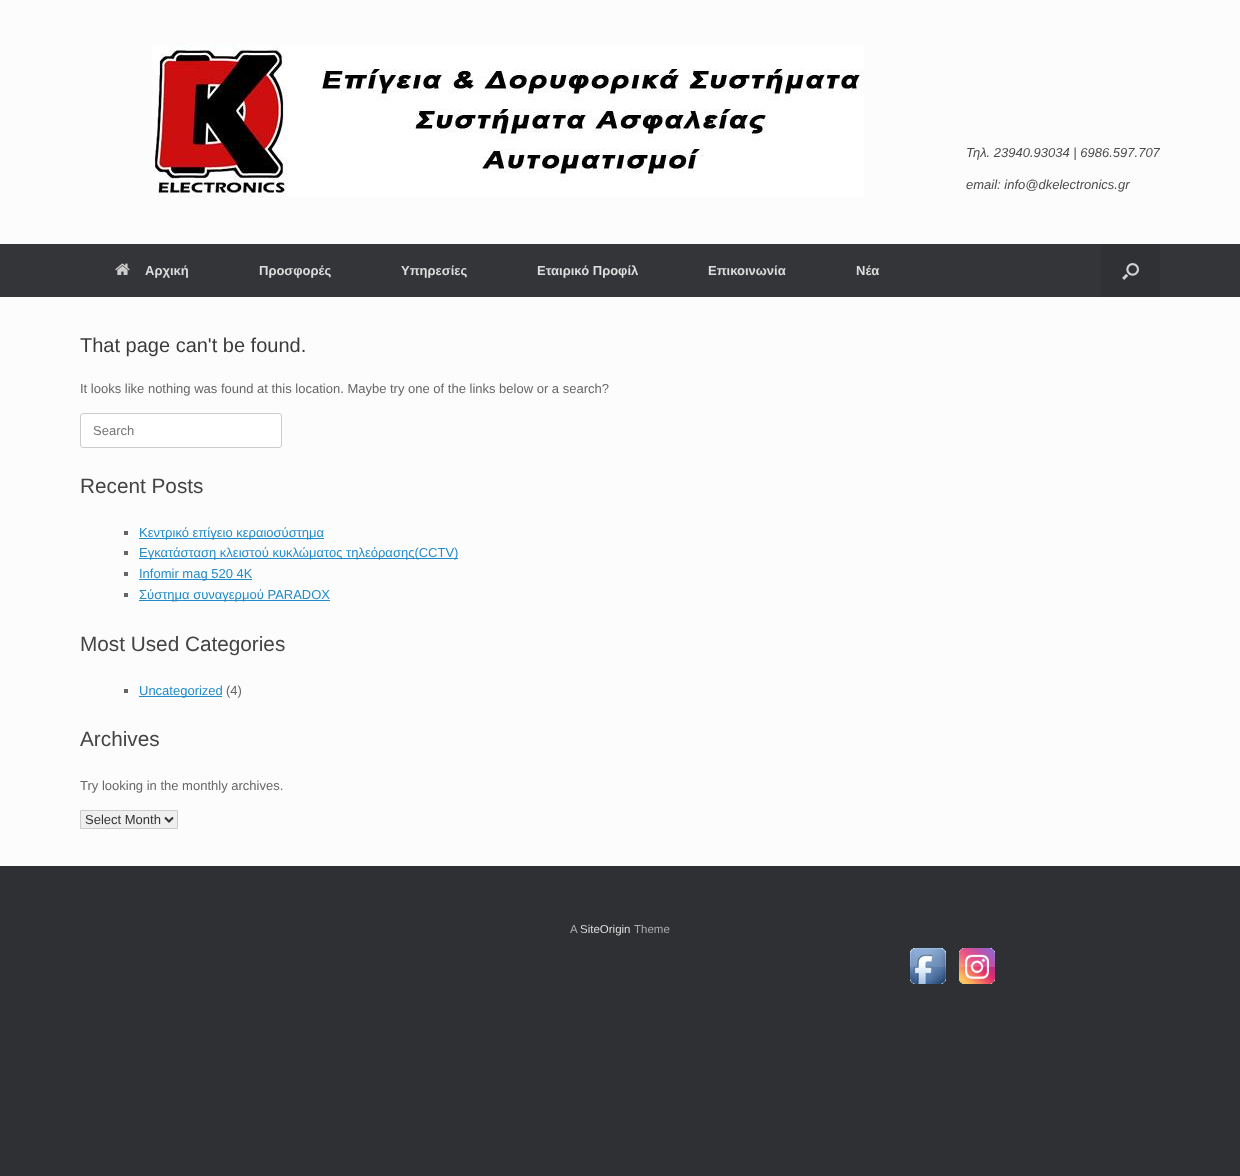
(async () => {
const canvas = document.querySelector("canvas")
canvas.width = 1240
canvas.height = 1176
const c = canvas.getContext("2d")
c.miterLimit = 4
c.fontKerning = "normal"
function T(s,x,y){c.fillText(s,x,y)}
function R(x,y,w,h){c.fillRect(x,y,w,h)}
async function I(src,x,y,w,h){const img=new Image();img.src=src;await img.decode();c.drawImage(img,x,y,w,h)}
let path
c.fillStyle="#2f3033"
R(0,0,1240,1176)
c.fillStyle="#fcfcfc"
R(0,0,1240,244)
await I("1.png",152,45,712,152)
c.font="italic 13px Liberation Sans"
c.fillStyle="#4b4b4b"
T("Τηλ. 23940.93034 | 6986.597.707",966,157)
T("email: info@dkelectronics.gr",966,189)
c.fillStyle="#343538"
R(0,244,1240,53)
await I("2.png",115,263,15,12)
c.font="bold 13px Liberation Sans"
c.fillStyle="#ddd"
T("Αρχική",145,275)
T("Προσφορές",259,275)
T("Υπηρεσίες",401,275)
T("Εταιρικό Προφίλ",537,275)
T("Επικοινωνία",708,275)
T("Νέα",856,275)
c.fillStyle="#303134"
R(1101,244,59,53)
await I("3.png",1122,263,17,17)
c.fillStyle="#fcfcfc"
R(0,297,1240,569)
c.font="20px Liberation Sans"
c.fillStyle="#3b3b3b"
T("That page can't be found.",80,352)
c.font="13px Liberation Sans"
c.fillStyle="#666"
T("It looks like nothing was found at this location. Maybe try one of the links below or a search?",80,393)
c.fillStyle="#fff"
c.beginPath()
c.roundRect(80.5,413.5,201,34,2.5)
c.fill()
c.strokeStyle="#ccc"
c.stroke()
c.fillStyle="#757575"
T("Search",93,435)
c.font="20.75px Liberation Sans"
c.fillStyle="#444"
T("Recent Posts",80,493)
c.fillStyle="#666"
R(124,531,4,4)
c.fillStyle="#248cc8"
R(139,538,185,1)
c.font="13px Liberation Sans"
T("Κεντρικό επίγειο κεραιοσύστημα",139,537)
c.fillStyle="#666"
R(124,551,4,4)
c.fillStyle="#248cc8"
R(139,558,319,1)
T("Εγκατάσταση κλειστού κυκλώματος τηλεόρασης(CCTV)",139,557)
c.fillStyle="#666"
R(124,572,4,4)
c.fillStyle="#248cc8"
R(139,579,113,1)
T("Infomir mag 520 4Κ",139,578)
c.fillStyle="#666"
R(124,593,4,4)
c.fillStyle="#248cc8"
R(139,600,191,1)
T("Σύστημα συναγερμού PARADOX",139,599)
c.font="20.75px Liberation Sans"
c.fillStyle="#444"
T("Most Used Categories",80,651)
c.fillStyle="#666"
R(124,689,4,4)
c.fillStyle="#248cc8"
R(139,696,83,1)
c.font="13px Liberation Sans"
T("Uncategorized",139,695)
c.fillStyle="#666"
T("(4)",226,695)
c.font="20.75px Liberation Sans"
c.fillStyle="#444"
T("Archives",80,746)
c.font="13px Liberation Sans"
c.fillStyle="#666"
T("Try looking in the monthly archives.",80,790)
c.fillStyle="#efefef"
c.beginPath()
c.rect(80.5,810.5,97,18)
c.fill()
c.stroke()
path = new Path2D("M165 817.5l4 4l4-4")
c.strokeStyle="#333"
c.lineWidth=2
c.stroke(path)
c.fillStyle="#333"
T("Select Month",85,824)
c.font="11.5px Liberation Sans"
c.fillStyle="#aaa"
T("A",570,933)
c.fillStyle="#ddd"
T("SiteOrigin",580,933)
c.fillStyle="#aaa"
T("Theme",634,933)
await I("4.png",910,948,36,36)
await I("5.png",959,948,36,36)
})()
